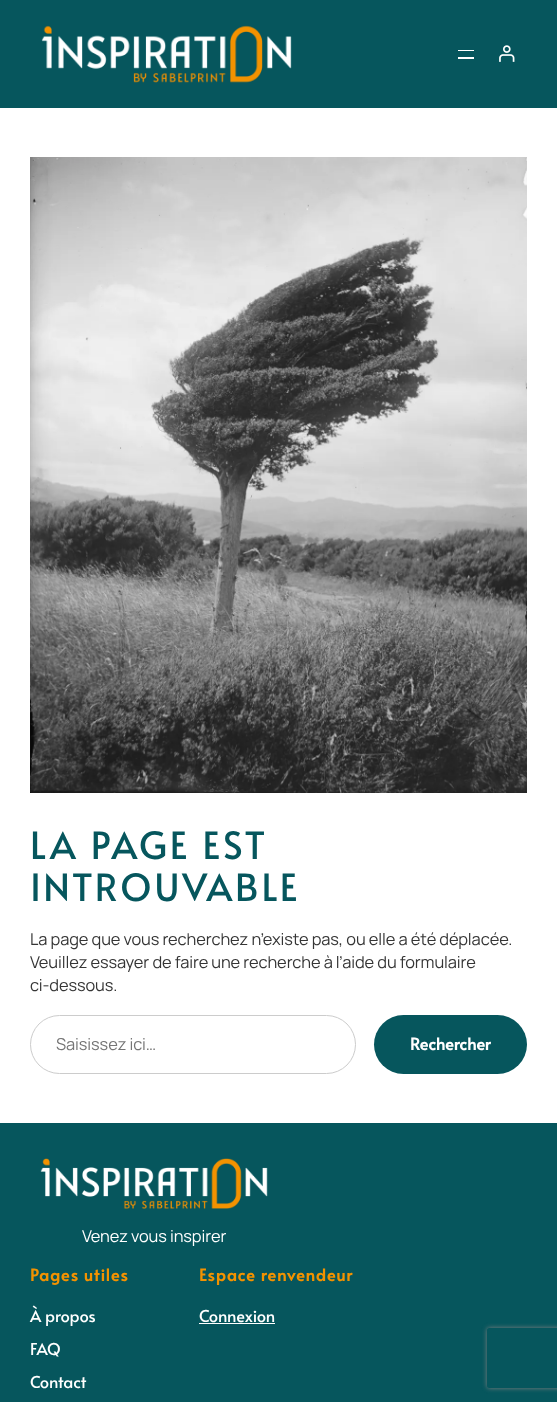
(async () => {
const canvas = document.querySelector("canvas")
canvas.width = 557
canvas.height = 1402
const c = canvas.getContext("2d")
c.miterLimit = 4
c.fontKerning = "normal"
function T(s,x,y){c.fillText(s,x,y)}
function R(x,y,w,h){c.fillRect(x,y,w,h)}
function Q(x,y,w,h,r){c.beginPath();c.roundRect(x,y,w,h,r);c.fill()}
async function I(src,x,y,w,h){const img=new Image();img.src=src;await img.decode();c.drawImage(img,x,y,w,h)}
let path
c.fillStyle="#fff"
R(0,0,557,1402)
c.fillStyle="#06565d"
R(0,0,557,108)
await I("1.png",41,25,251,58)
c.fillStyle="#fff"
R(458,50,16,1)
R(458,57,16,2)
await I("2.png",499,45,16,17)
await I("3.png",30,157,497,636)
c.letterSpacing="3px"
c.font="37.5px Alata"
c.fillStyle="#06565d"
T("LA PAGE EST",30,859)
T("INTROUVABLE",30,901)
c.letterSpacing="-0.1px"
c.font="16.45px Manrope"
c.fillStyle="#353535"
T("La page que vous recherchez n’existe pas, ou elle a été déplacée.",30,945)
T("Veuillez essayer de faire une recherche à l’aide du formulaire",30,968)
T("ci-dessous.",30,991)
c.beginPath()
c.roundRect(30.5,1015.5,325,58,29)
c.strokeStyle="#ccc"
c.stroke()
c.fillStyle="#757575"
T("Saisissez ici…",56,1050)
c.fillStyle="#06565d"
Q(374,1015,153,59,29.5)
c.letterSpacing="0px"
c.font="bold 16.45px Alata"
c.fillStyle="#fff"
T("Rechercher",410,1050)
c.fillStyle="#06565d"
R(0,1123,557,279)
await I("4.png",40,1158,228,51)
c.letterSpacing="-0.1px"
c.font="16.45px Manrope"
c.fillStyle="#fff"
T("Venez vous inspirer",82,1242)
c.letterSpacing="1px"
c.font="bold 16.45px Alata"
c.fillStyle="#f39200"
T("Pages utiles",30,1281)
c.letterSpacing="-0.1px"
c.font="16.45px Alata"
c.fillStyle="#fff"
T("À propos",30,1322)
T("FAQ",30,1355)
T("Contact",30,1388)
c.letterSpacing="1px"
c.font="bold 16.45px Alata"
c.fillStyle="#f39200"
T("Espace renvendeur",199,1281)
c.letterSpacing="-0.1px"
c.font="16.45px Alata"
c.fillStyle="#fff"
T("Connexion",199,1322)
R(199,1323,76,1)
c.save()
path = new Path2D("M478 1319h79v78h-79zm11 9h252c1 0 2 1 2 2v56c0 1-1 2-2 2h-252c-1 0-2-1-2-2v-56c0-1 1-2 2-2z")
c.clip(path,"evenodd")
c.fillStyle="#808080"
c.filter="blur(2.5px)"
c.beginPath()
c.roundRect(487,1328,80,60,2)
c.fill()
c.filter="none"
c.restore()
})()
